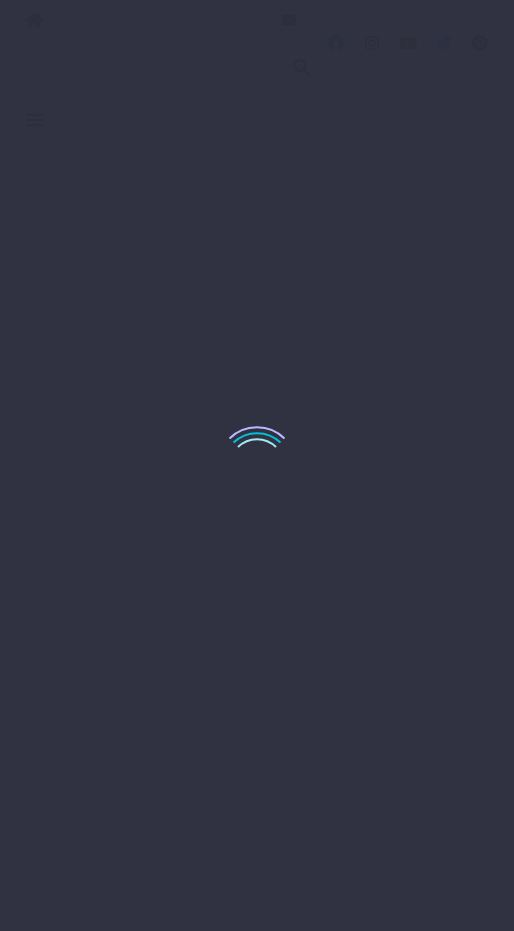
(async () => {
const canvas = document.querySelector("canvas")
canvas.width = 514
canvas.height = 931
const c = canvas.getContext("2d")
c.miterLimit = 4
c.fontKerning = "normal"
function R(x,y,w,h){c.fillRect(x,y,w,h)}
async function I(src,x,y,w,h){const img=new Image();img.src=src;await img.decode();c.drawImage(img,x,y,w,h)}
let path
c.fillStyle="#303241"
R(0,0,514,931)
await I("1.png",25,13,18,15)
await I("2.png",282,14,14,12)
await I("3.png",328,35,16,16)
await I("4.png",365,36,14,14)
await I("5.png",399,37,18,12)
await I("6.png",436,36,16,14)
await I("7.png",472,35,16,16)
await I("8.png",293,59,18,18)
c.fillStyle="#2c2e3d"
R(26,114,18,2)
R(26,119,18,2)
R(26,124,18,2)
path = new Path2D("M229.5 438.5c15-15 40-15 55 0")
c.strokeStyle="#bab8ff"
c.lineWidth=2
c.stroke(path)
path = new Path2D("M233.5 442.5c13-12.5 34-12.5 47 0")
c.strokeStyle="#05bdd5"
c.stroke(path)
path = new Path2D("M238 447c10.5-10.5 27.5-10.5 38 0")
c.strokeStyle="#a5e7f0"
c.stroke(path)
})()
